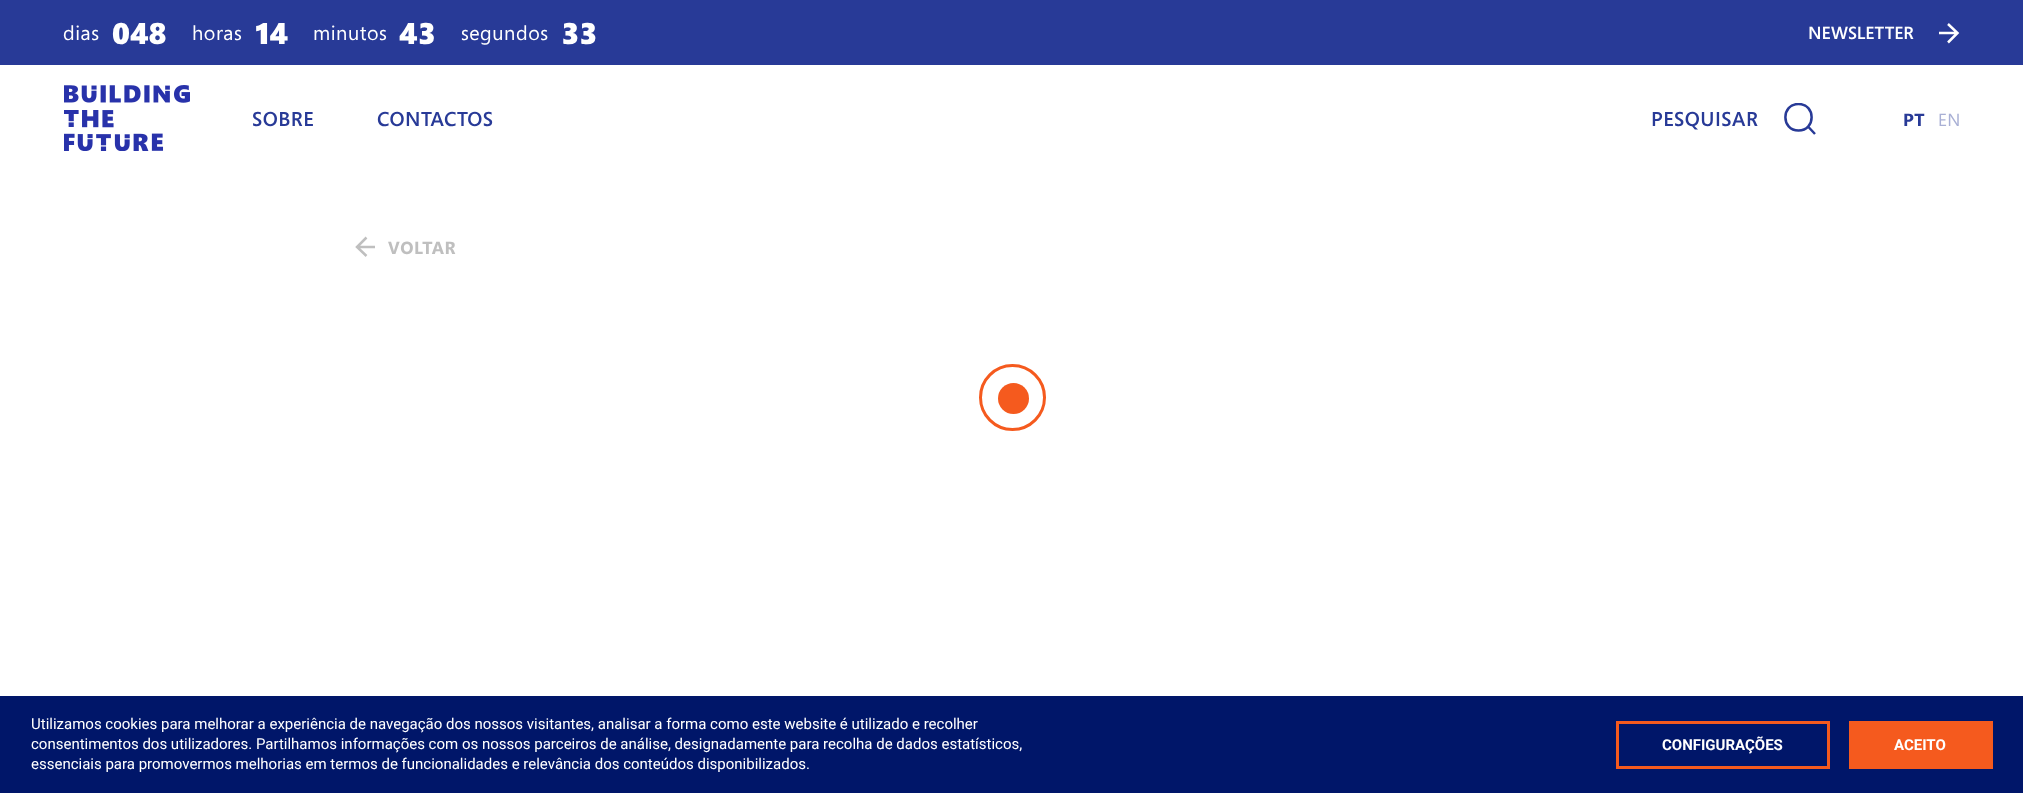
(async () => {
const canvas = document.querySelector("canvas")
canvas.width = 2023
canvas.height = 793
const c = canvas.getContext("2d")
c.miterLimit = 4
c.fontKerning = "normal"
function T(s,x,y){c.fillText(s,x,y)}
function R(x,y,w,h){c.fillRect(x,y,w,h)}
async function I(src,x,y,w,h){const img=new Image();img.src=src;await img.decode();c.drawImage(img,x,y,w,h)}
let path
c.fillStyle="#fff"
R(0,0,2023,793)
c.fillStyle="#283a97"
R(0,0,2023,65)
c.letterSpacing="0.5px"
c.font="20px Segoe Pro"
c.fillStyle="#fff"
T("dias",63,40)
c.letterSpacing="0px"
c.font="900 30px Segoe Pro"
T("048",112,44)
c.letterSpacing="0.5px"
c.font="20px Segoe Pro"
T("horas",192,40)
c.letterSpacing="0px"
c.font="900 30px Segoe Pro"
T("14",255,44)
c.letterSpacing="0.5px"
c.font="20px Segoe Pro"
T("minutos",313,40)
c.letterSpacing="0px"
c.font="900 30px Segoe Pro"
T("43",399,44)
c.letterSpacing="0.5px"
c.font="20px Segoe Pro"
T("segundos",461,40)
c.letterSpacing="0px"
c.font="900 30px Segoe Pro"
T("33",561,44)
c.font="600 17.5px Segoe Pro"
T("NEWSLETTER",1808,39)
path = new Path2D("M1939 33h18.5m-9.5-9l9.5 9l-9.5 9.5")
c.strokeStyle="#fff"
c.lineWidth=2.5
c.stroke(path)
await I("1.png",64,85,126,66)
c.letterSpacing="0.5px"
c.font="600 20px Segoe Pro"
c.fillStyle="#283a97"
T("SOBRE",252,126)
T("CONTACTOS",377,126)
T("PESQUISAR",1651,126)
c.save()
c.beginPath()
c.rect(1784,103,32,32)
c.clip()
path = new Path2D("M1798.5 130.5c17.5 0 17.5-26.5 0-26.5c-17.5 0-17.5 26.5 0 26.5zm16.5 3.5l-7-7.5")
c.strokeStyle="#283a97"
c.stroke(path)
c.restore()
c.font="bold 17.5px Segoe Pro"
T("PT",1903,126)
c.font="17.5px Segoe Pro"
c.fillStyle="#a9b0d5"
T("EN",1938,126)
c.save()
c.beginPath()
c.rect(354,236,21,22)
c.clip()
path = new Path2D("M376 247h-19m9.5 9l-9.5-9l9.5-9.5")
c.strokeStyle="#bfbfbf"
c.stroke(path)
c.restore()
c.font="bold 17.5px Segoe Pro"
c.fillStyle="#bfbfbf"
T("VOLTAR",388,254)
c.fillStyle="#f55a1e"
c.beginPath()
c.arc(1013.5,398.5,15.5,0,7)
c.fill()
c.beginPath()
c.arc(1012.5,397.5,32,0,7)
c.strokeStyle="#f55a1e"
c.lineWidth=3
c.stroke()
c.fillStyle="#001669"
R(0,696,2023,97)
c.letterSpacing="0px"
c.font="15px Roboto"
c.fillStyle="#fff"
T("Utilizamos cookies para melhorar a experiência de navegação dos nossos visitantes, analisar a forma como este website é utilizado e recolher",31,729)
T("consentimentos dos utilizadores. Partilhamos informações com os nossos parceiros de análise, designadamente para recolha de dados estatísticos,",31,749)
T("essenciais para promovermos melhorias em termos de funcionalidades e relevância dos conteúdos disponibilizados.",31,769)
c.strokeRect(1617.5,722.5,211,45)
c.font="bold 15px Roboto"
T("CONFIGURAÇÕES",1662,750)
c.fillStyle="#f55a1e"
R(1849,721,144,48)
c.fillStyle="#fff"
T("ACEITO",1894,750)
})()
